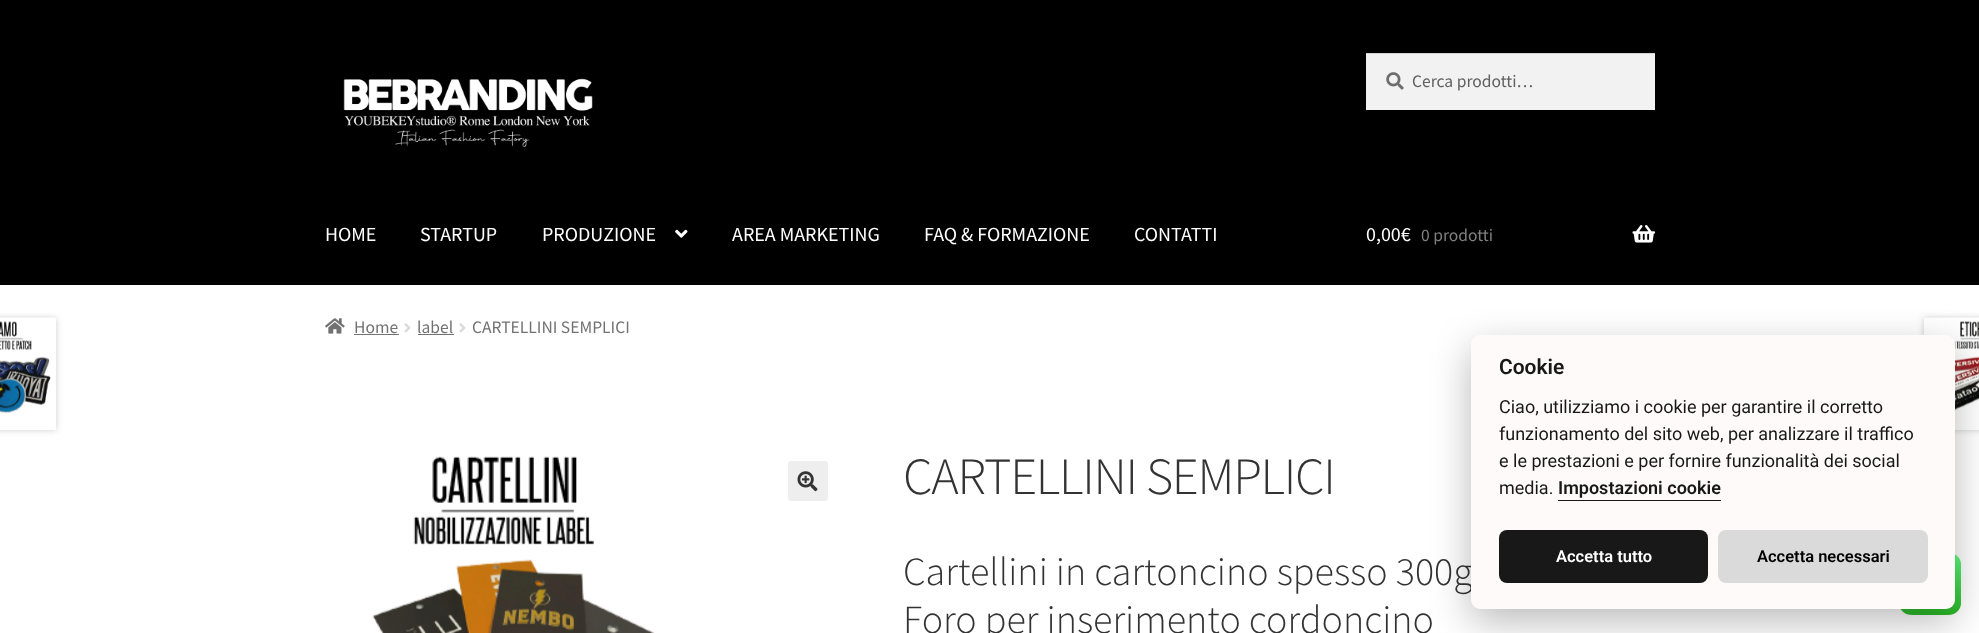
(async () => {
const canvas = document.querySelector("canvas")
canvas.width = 1979
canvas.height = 633
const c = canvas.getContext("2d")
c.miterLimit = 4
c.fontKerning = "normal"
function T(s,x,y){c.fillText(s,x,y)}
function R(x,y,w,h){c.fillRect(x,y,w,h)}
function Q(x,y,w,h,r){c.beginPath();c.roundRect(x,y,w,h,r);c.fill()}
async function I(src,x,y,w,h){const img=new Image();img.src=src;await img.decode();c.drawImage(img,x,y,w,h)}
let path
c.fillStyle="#fff"
R(0,0,1979,633)
c.fillStyle="#000"
R(0,0,1979,285)
await I("1.png",343,78,250,69)
c.fillStyle="#f2f2f2"
R(1366,54,289,56)
await I("2.png",1386,72,18,18)
c.fillStyle="#d4d4d4"
R(1366,53,289,1)
c.font="17.5px Source Sans Pro"
c.fillStyle="#616161"
T("Cerca prodotti…",1412,87)
c.font="20px Source Sans Pro"
c.fillStyle="#fff"
T("HOME",325,241)
T("STARTUP",420,241)
T("PRODUZIONE",542,241)
await I("3.png",675,229,13,9)
T("AREA MARKETING",732,241)
T("FAQ & FORMAZIONE",924,241)
T("CONTATTI",1134,241)
T("0,00€",1366,241)
c.font="17.5px Source Sans Pro"
c.fillStyle="#808080"
T("0 prodotti",1421,241)
await I("4.png",1632,225,23,18)
await I("5.png",325,318,20,16)
c.fillStyle="#727272"
T("Home",354,333)
R(354,334,45,1)
await I("6.png",404,323,7,10)
T("label",417,333)
R(418,334,36,1)
await I("6.png",459,323,7,10)
T("CARTELLINI SEMPLICI",472,333)
c.save()
path = new Path2D("M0 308h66v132h-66zm-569 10h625v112h-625z")
c.clip(path,"evenodd")
c.fillStyle="#00000033"
c.filter="blur(3px)"
c.beginPath()
c.rect(-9,318,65,112)
c.fill()
c.filter="none"
c.restore()
await I("7.png",0,317,54,97)
c.save()
path = new Path2D("M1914 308h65v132h-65zm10 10h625v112h-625z")
c.clip(path,"evenodd")
c.fillStyle="#00000033"
c.filter="blur(3px)"
c.beginPath()
c.rect(1924,318,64,112)
c.fill()
c.filter="none"
c.restore()
await I("8.png",1924,317,55,103)
await I("9.png",372,456,283,177)
c.fillStyle="#eee"
Q(788,461,40,40,4)
await I("10.png",797,471,21,21)
c.letterSpacing="-1.25px"
c.font="300 52.25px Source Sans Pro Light"
c.fillStyle="#333"
T("CARTELLINI SEMPLICI",903,494)
c.letterSpacing="0px"
c.font="300 40px Source Sans Pro Light"
T("Cartellini in cartoncino spesso 300g",903,585)
T("Foro per inserimento cordoncino",903,633)
await I("11.png",1900,554,61,61)
c.fillStyle="#02020347"
c.filter="blur(19px)"
c.beginPath()
c.roundRect(1471,348,484,273,9)
c.fill()
c.filter="none"
c.fillStyle="#fffafa"
Q(1471,335,484,274,9)
c.font="600 21px Roboto"
c.fillStyle="#181818"
T("Cookie",1499,374)
c.font="18px Roboto"
T("Ciao, utilizziamo i cookie per garantire il corretto",1499,413)
T("funzionamento del sito web, per analizzare il traffico",1499,440)
T("e le prestazioni e per fornire funzionalità dei social",1499,467)
T("media.",1499,494)
c.font="600 18px Roboto"
T("Impostazioni cookie",1558,494)
R(1558,500,163,1)
Q(1499,530,209,53,8)
c.font="600 16.5px Roboto"
c.fillStyle="#fff"
T("Accetta tutto",1556,562)
c.fillStyle="#dadada"
Q(1718,530,210,53,8)
c.fillStyle="#000"
T("Accetta necessari",1757,562)
})()
